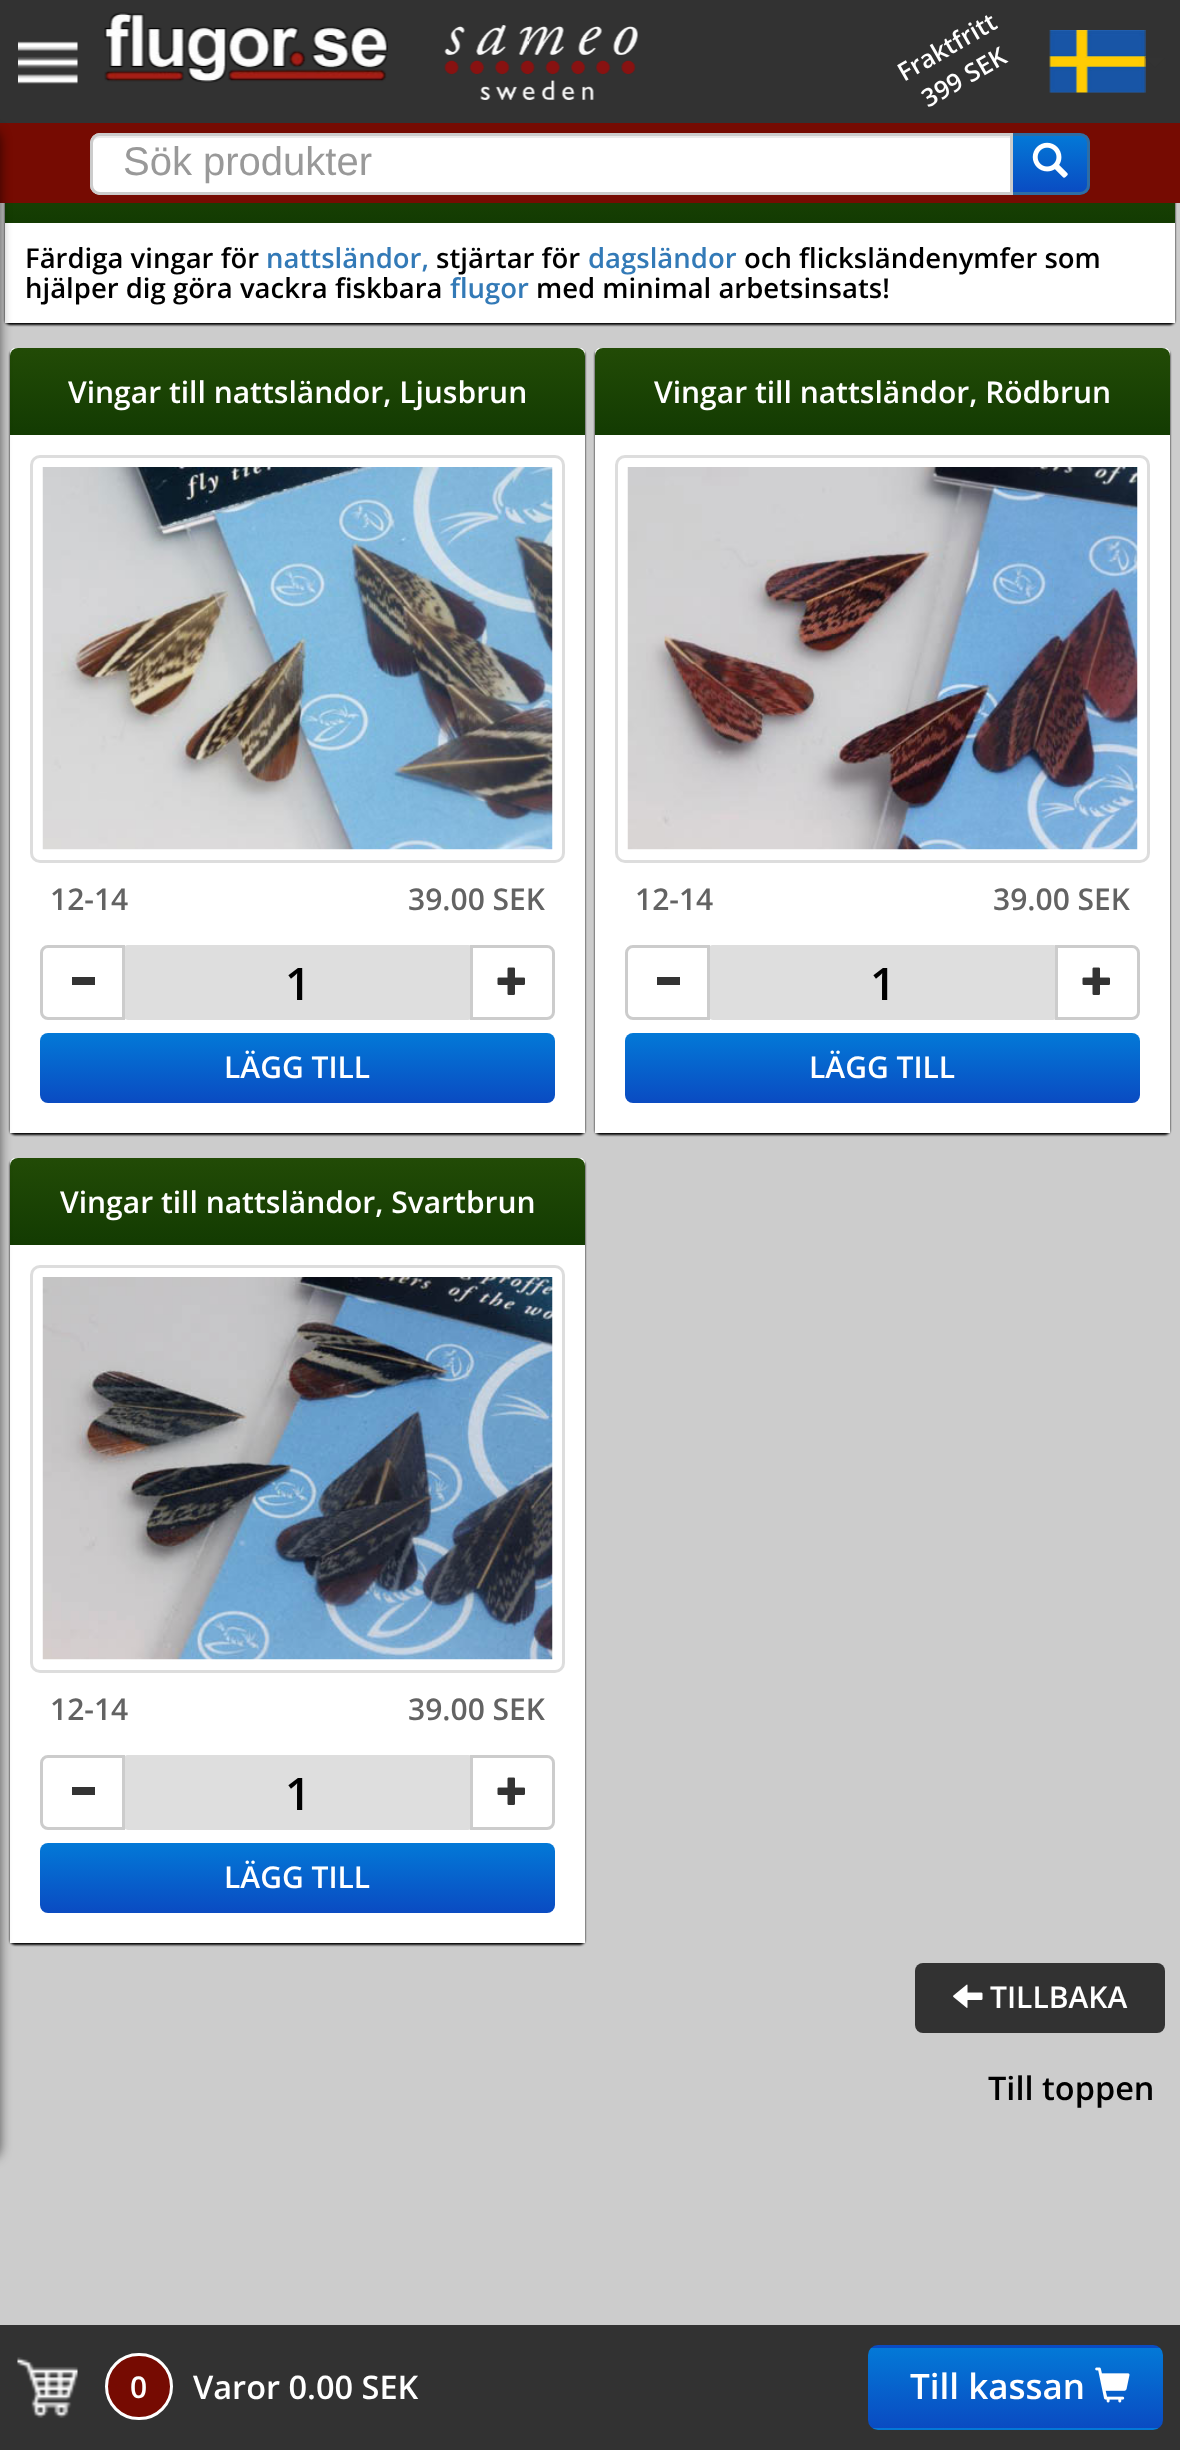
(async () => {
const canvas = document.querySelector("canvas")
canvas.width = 1180
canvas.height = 2450
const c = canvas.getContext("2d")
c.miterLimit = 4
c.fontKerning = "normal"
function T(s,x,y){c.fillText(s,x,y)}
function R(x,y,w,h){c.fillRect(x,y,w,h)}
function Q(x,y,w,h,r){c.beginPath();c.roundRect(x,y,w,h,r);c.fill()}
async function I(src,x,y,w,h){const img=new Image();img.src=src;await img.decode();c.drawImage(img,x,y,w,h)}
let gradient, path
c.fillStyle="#ccc"
R(0,0,1180,2450)
c.fillStyle="#323232"
R(0,0,1180,123)
c.fillStyle="#000"
c.filter="blur(1px)"
c.beginPath()
c.roundRect(5,138,1170,187,5)
c.fill()
c.filter="none"
c.fillStyle="#760b02"
R(0,123,1180,80)
gradient = c.createLinearGradient(590,135,590,223)
gradient.addColorStop(0,"#224b06")
gradient.addColorStop(1,"#133b02")
c.fillStyle = gradient
R(5,203,1170,20)
c.fillStyle="#fff"
R(5,223,1170,100)
c.fillStyle="#000"
c.filter="blur(1px)"
c.beginPath()
c.roundRect(10,350,575,785,5)
c.fill()
c.filter="none"
c.fillStyle="#fff"
Q(10,348,575,785,5)
gradient = c.createLinearGradient(298,348,298,435)
gradient.addColorStop(0,"#224b06")
gradient.addColorStop(1,"#133b02")
c.fillStyle = gradient
c.beginPath()
c.roundRect(10,348,575,87,[8,8,0,0])
c.fill()
c.fillStyle="#fff"
R(10,1128,575,5)
c.fillStyle="#000"
c.filter="blur(1px)"
c.beginPath()
c.roundRect(10,1160,575,785,5)
c.fill()
c.filter="none"
c.fillStyle="#fff"
Q(10,1158,575,785,5)
gradient = c.createLinearGradient(298,1158,298,1245)
gradient.addColorStop(0,"#224b06")
gradient.addColorStop(1,"#133b02")
c.fillStyle = gradient
c.beginPath()
c.roundRect(10,1158,575,87,[8,8,0,0])
c.fill()
c.fillStyle="#fff"
R(10,1938,575,5)
c.fillStyle="#00000099"
c.filter="blur(6px)"
c.beginPath()
c.roundRect(-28,130,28,2028,10)
c.fill()
c.filter="none"
await I("1.png",18,41,60,43)
await I("2.png",104,12,284,71)
await I("3.png",444,25,194,75)
c.font="600 25px Open Sans"
c.fillStyle="#fff"
c.save()
c.translate(904,82)
c.rotate(-30 * Math.PI / 180)
c.fillText("Fraktfritt",0,0)
c.restore()
c.save()
c.translate(928,108)
c.rotate(-30 * Math.PI / 180)
c.fillText("399 SEK",0,0)
c.restore()
await I("4.png",1049,30,97,63)
c.fillStyle="#333"
path = new Path2D("M1145 57.5h20l-10 10z")
c.fill(path)
c.save()
c.beginPath()
c.roundRect(1010,133,80,62,[0,10,10,0])
c.clip()
gradient = c.createLinearGradient(1050,135,1050,193)
gradient.addColorStop(0,"#0379d7")
gradient.addColorStop(1,"#0a4bc2")
c.fillStyle = gradient
R(1013,135,77,58)
c.restore()
c.beginPath()
c.roundRect(1011.5,134.5,77,59,[0,8.5,8.5,0])
c.strokeStyle="#2e6da4"
c.lineWidth=3
c.stroke()
c.fillStyle="#fff"
c.beginPath()
c.roundRect(90,133,923,62,[10,0,0,10])
c.fill()
c.fillStyle="#ececec"
path = new Path2D("M100 138h910v-3h-909c-4 0-7 3-8 6c2-2 4-3 7-3z")
c.fill(path)
c.beginPath()
c.roundRect(91.5,134.5,920,59,[8.5,0,0,8.5])
c.strokeStyle="#ccc"
c.stroke()
c.font="40px Liberation Sans"
c.fillStyle="#999"
T("Sök produkter",123,175)
await I("5.png",1032,142,36,36)
c.font="600 27.5px Open Sans"
c.fillStyle="#000"
T("Färdiga vingar för",25,268)
c.fillStyle="#337ab7"
T("nattsländor,",266,268)
c.fillStyle="#000"
T("stjärtar för",436,268)
c.fillStyle="#337ab7"
T("dagsländor",588,268)
c.fillStyle="#000"
T("och flicksländenymfer som",744,268)
T("hjälper dig göra vackra fiskbara",25,298)
c.fillStyle="#337ab7"
T("flugor",450,298)
c.fillStyle="#000"
T("med minimal arbetsinsats!",536,298)
c.font="600 30px Open Sans"
c.fillStyle="#fff"
T("Vingar till nattsländor, Ljusbrun",68,403)
c.beginPath()
c.roundRect(31.5,456.5,532,405,8.5)
c.strokeStyle="#ddd"
c.stroke()
await I("6.png",42,467,511,383)
c.fillStyle="#636363"
T("12-14",50,910)
T("39.00 SEK",408,910)
c.fillStyle="#dedede"
c.beginPath()
c.roundRect(124.5,946.5,347,72,3.5)
c.fill()
c.strokeStyle="#dedede"
c.stroke()
c.fillStyle="#fff"
c.beginPath()
c.roundRect(41.5,946.5,82,72,[6.5,0,0,6.5])
c.fill()
c.strokeStyle="#ccc"
c.stroke()
c.fillStyle="#333"
R(72,977,23,8)
c.font="600 45px Open Sans"
c.fillStyle="#000"
T("1",285,1000)
c.fillStyle="#fff"
c.beginPath()
c.roundRect(471.5,946.5,82,72,[0,6.5,6.5,0])
c.fill()
c.stroke()
await I("7.png",497,967,28,28)
gradient = c.createLinearGradient(298,1033,298,1103)
gradient.addColorStop(0,"#0379d7")
gradient.addColorStop(1,"#0a4bc2")
c.fillStyle = gradient
Q(40,1033,515,70,8)
c.font="600 30px Open Sans"
c.fillStyle="#fff"
T("LÄGG TILL",224,1078)
c.fillStyle="#000"
c.filter="blur(1px)"
c.beginPath()
c.roundRect(595,350,575,785,5)
c.fill()
c.filter="none"
c.fillStyle="#fff"
Q(595,348,575,785,5)
gradient = c.createLinearGradient(883,348,883,435)
gradient.addColorStop(0,"#224b06")
gradient.addColorStop(1,"#133b02")
c.fillStyle = gradient
c.beginPath()
c.roundRect(595,348,575,87,[8,8,0,0])
c.fill()
c.fillStyle="#fff"
T("Vingar till nattsländor, Rödbrun",654,403)
R(595,1128,575,5)
c.beginPath()
c.roundRect(616.5,456.5,532,405,8.5)
c.strokeStyle="#ddd"
c.stroke()
await I("8.png",627,467,511,383)
c.fillStyle="#636363"
T("12-14",635,910)
T("39.00 SEK",993,910)
c.fillStyle="#dedede"
c.beginPath()
c.roundRect(709.5,946.5,347,72,3.5)
c.fill()
c.strokeStyle="#dedede"
c.stroke()
c.fillStyle="#fff"
c.beginPath()
c.roundRect(626.5,946.5,82,72,[6.5,0,0,6.5])
c.fill()
c.strokeStyle="#ccc"
c.stroke()
c.fillStyle="#333"
R(657,977,23,8)
c.font="600 45px Open Sans"
c.fillStyle="#000"
T("1",870,1000)
c.fillStyle="#fff"
c.beginPath()
c.roundRect(1056.5,946.5,82,72,[0,6.5,6.5,0])
c.fill()
c.stroke()
await I("7.png",1082,967,28,28)
gradient = c.createLinearGradient(883,1033,883,1103)
gradient.addColorStop(0,"#0379d7")
gradient.addColorStop(1,"#0a4bc2")
c.fillStyle = gradient
Q(625,1033,515,70,8)
c.font="600 30px Open Sans"
c.fillStyle="#fff"
T("LÄGG TILL",809,1078)
T("Vingar till nattsländor, Svartbrun",60,1213)
c.beginPath()
c.roundRect(31.5,1266.5,532,405,8.5)
c.strokeStyle="#ddd"
c.stroke()
await I("9.png",42,1277,511,383)
c.fillStyle="#636363"
T("12-14",50,1720)
T("39.00 SEK",408,1720)
c.fillStyle="#dedede"
c.beginPath()
c.roundRect(124.5,1756.5,347,72,3.5)
c.fill()
c.strokeStyle="#dedede"
c.stroke()
c.fillStyle="#fff"
c.beginPath()
c.roundRect(41.5,1756.5,82,72,[6.5,0,0,6.5])
c.fill()
c.strokeStyle="#ccc"
c.stroke()
c.fillStyle="#333"
R(72,1787,23,8)
c.font="600 45px Open Sans"
c.fillStyle="#000"
T("1",285,1810)
c.fillStyle="#fff"
c.beginPath()
c.roundRect(471.5,1756.5,82,72,[0,6.5,6.5,0])
c.fill()
c.stroke()
await I("7.png",497,1777,28,28)
gradient = c.createLinearGradient(298,1843,298,1913)
gradient.addColorStop(0,"#0379d7")
gradient.addColorStop(1,"#0a4bc2")
c.fillStyle = gradient
Q(40,1843,515,70,8)
c.font="600 30px Open Sans"
c.fillStyle="#fff"
T("LÄGG TILL",224,1888)
c.fillStyle="#323232"
Q(915,1963,250,70,8)
await I("10.png",953,1984,30,24)
c.fillStyle="#fff"
T("TILLBAKA",990,2008)
c.font="600 32.5px Open Sans"
c.fillStyle="#000"
T("Till toppen",988,2100)
c.fillStyle="#323232"
R(0,2325,1180,125)
await I("11.png",17,2357,61,61)
c.fillStyle="#760b02"
c.beginPath()
c.roundRect(106.5,2354.5,65,64,32)
c.fill()
c.strokeStyle="#fff"
c.stroke()
c.font="600 30px Open Sans"
c.fillStyle="#fff"
T("0",130,2398)
c.font="600 32.5px Open Sans"
T("Varor 0.00 SEK",193,2399)
c.save()
c.beginPath()
c.roundRect(868,2345,295,85,10)
c.clip()
gradient = c.createLinearGradient(1015,2268,1015,2348)
gradient.addColorStop(0,"#0379d7")
gradient.addColorStop(1,"#0a4bc2")
c.fillStyle = gradient
R(868,2345,295,3)
gradient = c.createLinearGradient(1015,2348,1015,2428)
gradient.addColorStop(0,"#0379d7")
gradient.addColorStop(1,"#0a4bc2")
c.fillStyle = gradient
R(868,2348,295,80)
gradient = c.createLinearGradient(1015,2428,1015,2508)
gradient.addColorStop(0,"#0379d7")
gradient.addColorStop(1,"#0a4bc2")
c.fillStyle = gradient
R(868,2428,295,2)
c.restore()
c.font="600 35px Open Sans"
T("Till kassan",910,2399)
await I("12.png",1095,2367,35,36)
})()
